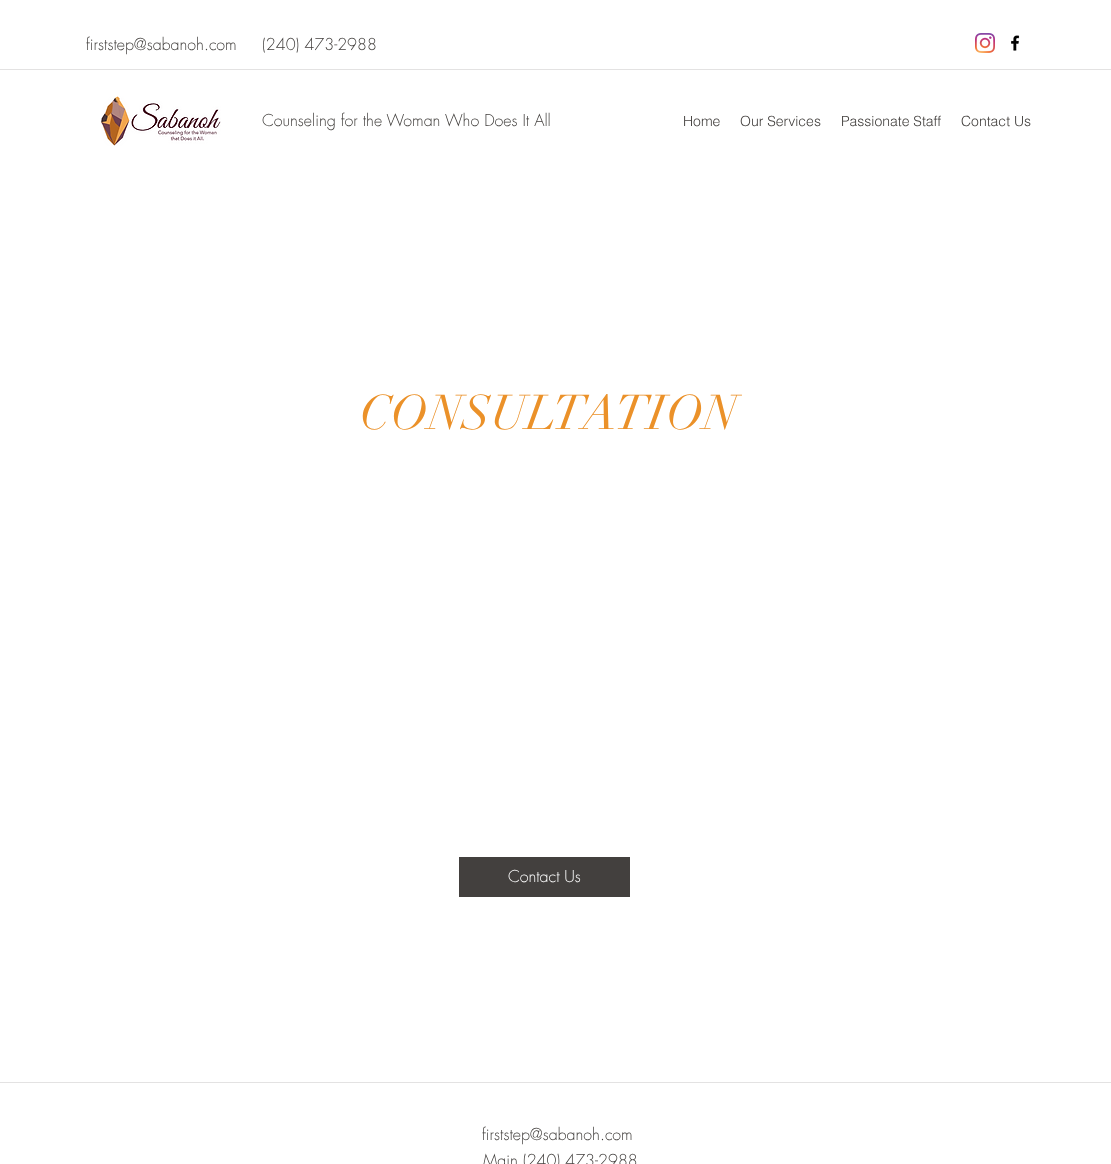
(async () => {
const canvas = document.querySelector("canvas")
canvas.width = 1111
canvas.height = 1164
const c = canvas.getContext("2d")
c.miterLimit = 4
c.fontKerning = "normal"
function T(s,x,y){c.fillText(s,x,y)}
function R(x,y,w,h){c.fillRect(x,y,w,h)}
async function I(src,x,y,w,h){const img=new Image();img.src=src;await img.decode();c.drawImage(img,x,y,w,h)}
c.fillStyle="#fff"
R(0,0,1111,1164)
c.font="300 16px futura"
c.fillStyle="#43403e"
T("firststep@sabanoh.com",86,50)
T("(240) 473-2988",262,50)
await I("1.png",975,33,20,20)
await I("2.png",1011,35,9,16)
c.fillStyle="#e3e2e2"
R(0,69,1111,1)
await I("3.png",101,96,120,50)
c.fillStyle="#43403e"
T("Counseling for the Woman Who Does It All",262,126)
c.font="300 14px helvetica"
T("Home",683,126)
T("Our Services",740,126)
T("Passionate Staff",841,126)
T("Contact Us",961,126)
c.font="48px didot"
c.fillStyle="#eb9129"
T("CONSULTATION",360,429)
c.fillStyle="#43403e"
R(459,857,171,40)
c.font="300 16px futura"
c.fillStyle="#fff"
T("Contact Us",508,882)
c.fillStyle="#e3e2e2"
R(0,1082,1111,1)
c.fillStyle="#43403e"
T("firststep@sabanoh.com",482,1140)
T("Main (240) 473-2988",483,1166)
})()
